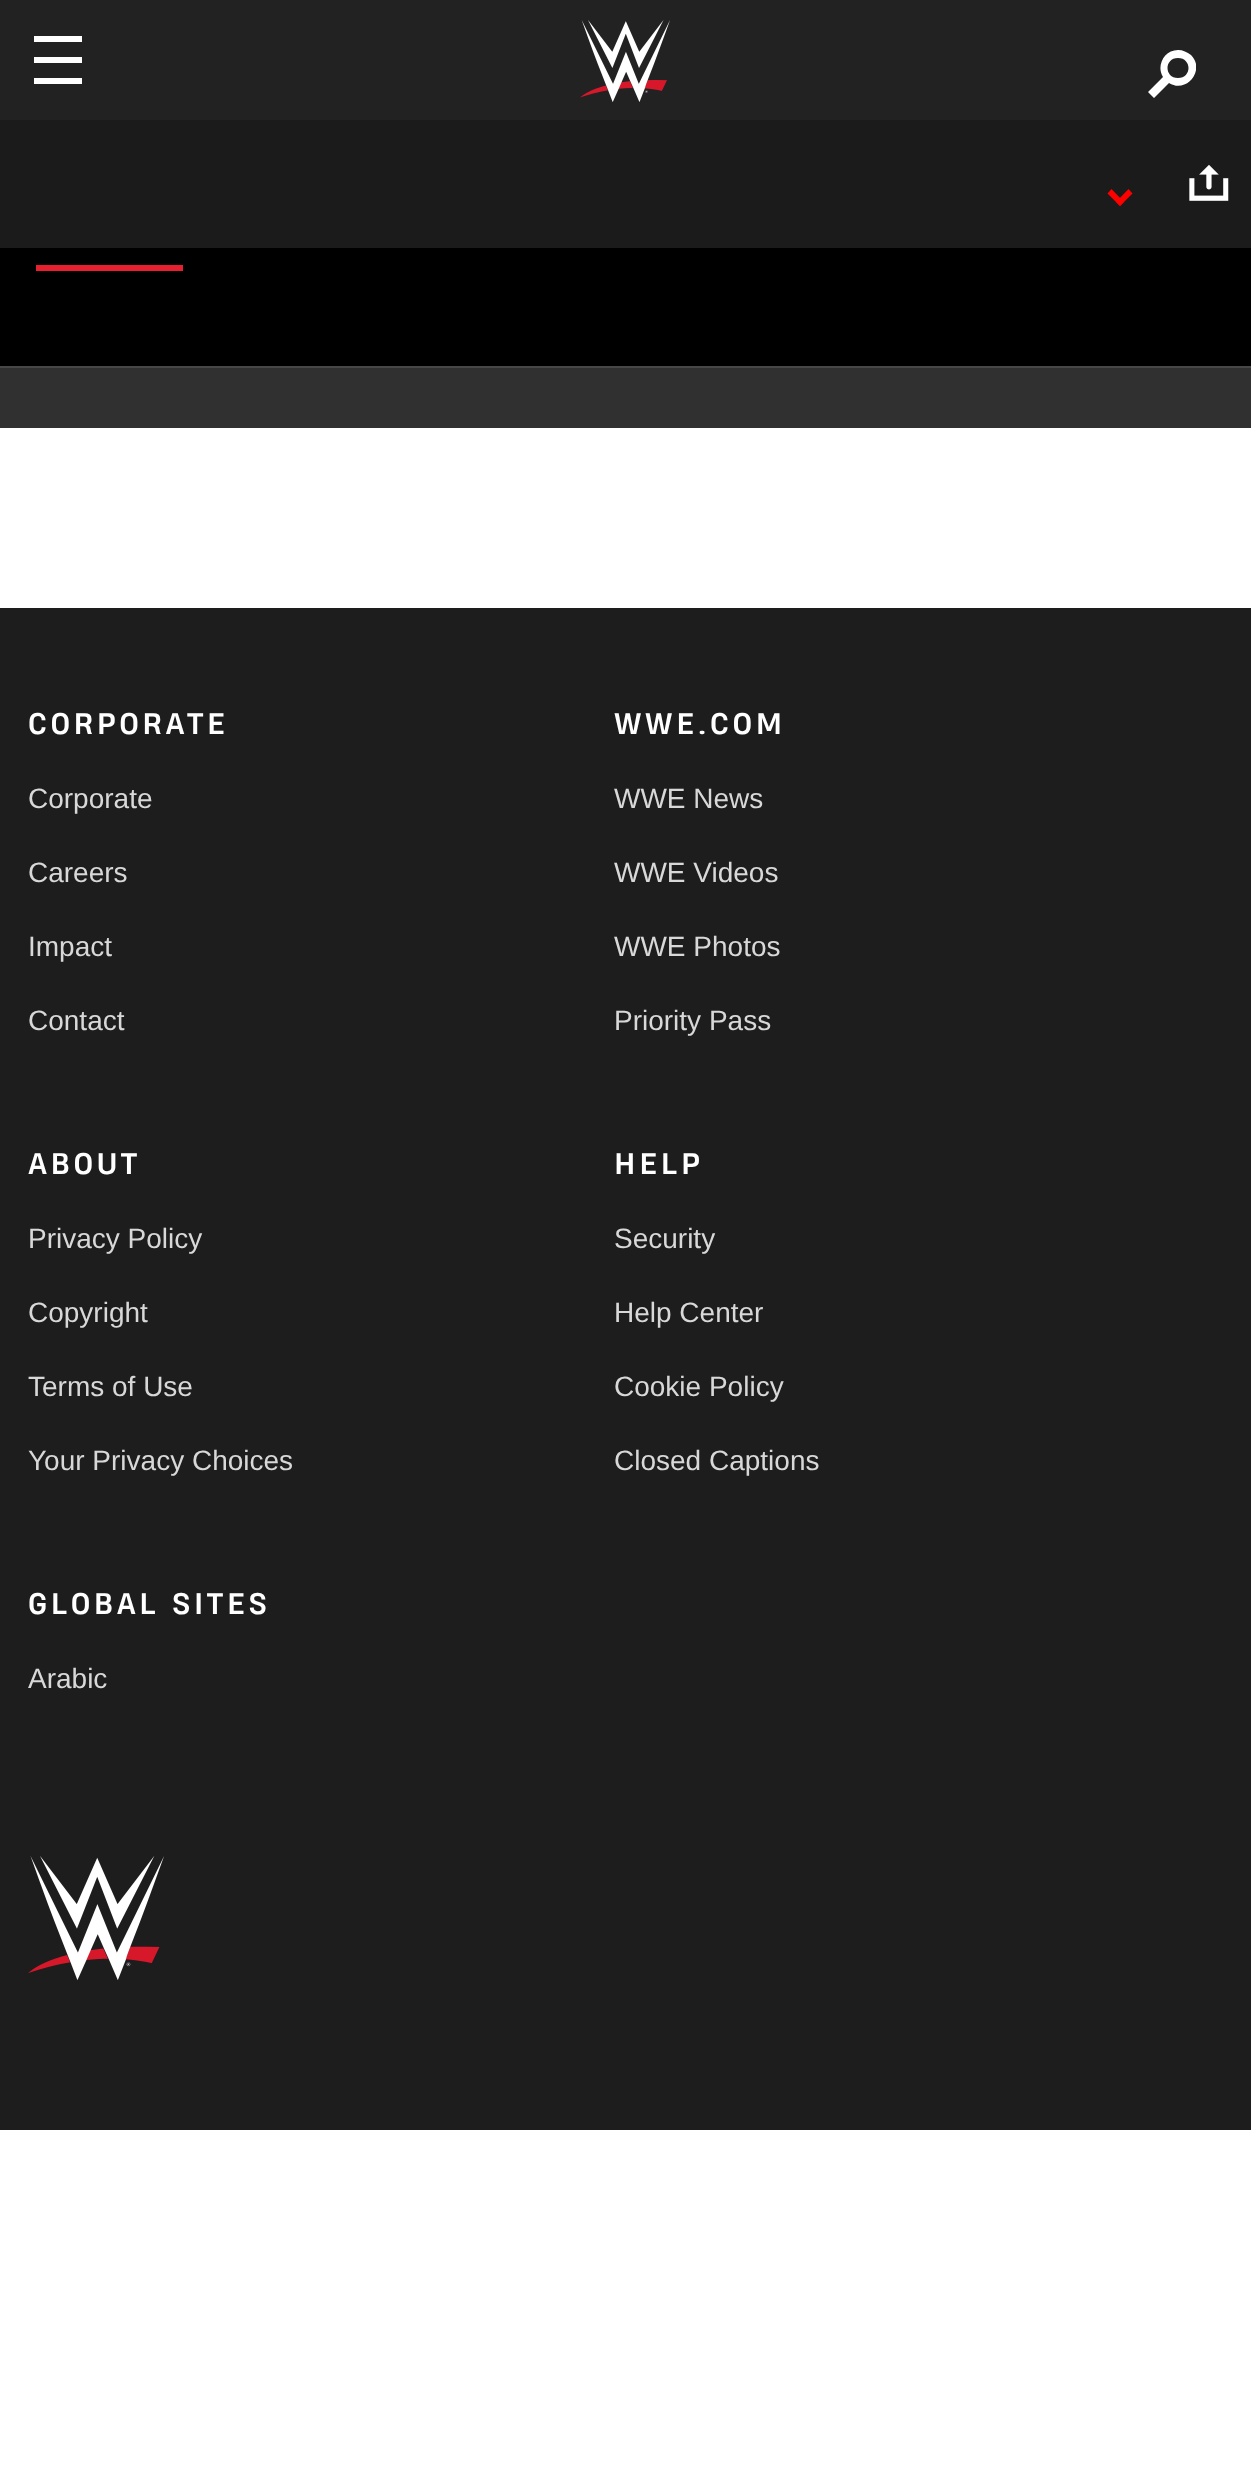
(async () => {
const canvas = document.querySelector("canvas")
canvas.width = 1251
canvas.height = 2478
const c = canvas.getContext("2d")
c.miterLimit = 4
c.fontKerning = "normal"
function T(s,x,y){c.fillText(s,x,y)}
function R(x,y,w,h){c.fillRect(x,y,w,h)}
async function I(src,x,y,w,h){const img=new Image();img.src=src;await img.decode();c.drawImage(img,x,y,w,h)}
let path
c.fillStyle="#fff"
R(0,0,1251,2478)
c.fillStyle="#222"
R(0,0,1251,120)
c.fillStyle="#fff"
path = new Path2D("M36 42h-2v-6h48v6zm0 21h-2v-6h48v6zm0 21h-2v-6h48v6z")
c.fill(path,"evenodd")
await I("1.png",580,20,90,82)
c.save()
c.beginPath()
c.rect(1148,50,48,48)
c.clip()
path = new Path2D("M1178 50c5 0 9 2 13 5c15 15-5 39-22 28l-15 15l-6-6l15-15c-7-11 1-27 15-27zm0 8c-14 0-14 20 0 20c14 0 14-20 0-20z")
c.fill(path,"evenodd")
c.restore()
c.fillStyle="#303030"
R(0,368,1251,60)
c.fillStyle="#1b1b1b"
R(0,120,1251,128)
c.fillStyle="#f00"
path = new Path2D("M1128.5 189l4 4.5l-12.5 12.5l-4-4z")
c.fill(path)
path = new Path2D("M1111.5 189l12.5 13l-4 4l-12.5-12.5z")
c.fill(path)
await I("2.png",1189,164,40,37)
c.fillStyle="#000"
R(0,248,1251,118)
c.fillStyle="#474747"
R(0,366,1251,2)
c.fillStyle="#e7202f"
R(36,265,147,6)
c.fillStyle="#1d1d1d"
R(0,608,1251,1522)
c.letterSpacing="3.5px"
c.font="bold 28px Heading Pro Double"
c.fillStyle="#fff"
T("CORPORATE",28,734)
c.letterSpacing="0px"
c.font="28px Liberation Sans"
c.fillStyle="#d8d8d8"
T("Corporate",28,808)
T("Careers",28,882)
T("Impact",28,956)
T("Contact",28,1030)
c.letterSpacing="3.5px"
c.font="bold 28px Heading Pro Double"
c.fillStyle="#fff"
T("WWE.COM",614,734)
c.letterSpacing="0px"
c.font="28px Liberation Sans"
c.fillStyle="#d8d8d8"
T("WWE News",614,808)
T("WWE Videos",614,882)
T("WWE Photos",614,956)
T("Priority Pass",614,1030)
c.letterSpacing="3.5px"
c.font="bold 28px Heading Pro Double"
c.fillStyle="#fff"
T("ABOUT",28,1174)
c.letterSpacing="0px"
c.font="28px Liberation Sans"
c.fillStyle="#d8d8d8"
T("Privacy Policy",28,1248)
T("Copyright",28,1322)
T("Terms of Use",28,1396)
T("Your Privacy Choices",28,1470)
c.letterSpacing="3.5px"
c.font="bold 28px Heading Pro Double"
c.fillStyle="#fff"
T("HELP",614,1174)
c.letterSpacing="0px"
c.font="28px Liberation Sans"
c.fillStyle="#d8d8d8"
T("Security",614,1248)
T("Help Center",614,1322)
T("Cookie Policy",614,1396)
T("Closed Captions",614,1470)
c.letterSpacing="3.5px"
c.font="bold 28px Heading Pro Double"
c.fillStyle="#fff"
T("GLOBAL SITES",28,1614)
c.letterSpacing="0px"
c.font="28px Liberation Sans"
c.fillStyle="#d8d8d8"
T("Arabic",28,1688)
await I("3.png",28,1856,136,124)
})()
